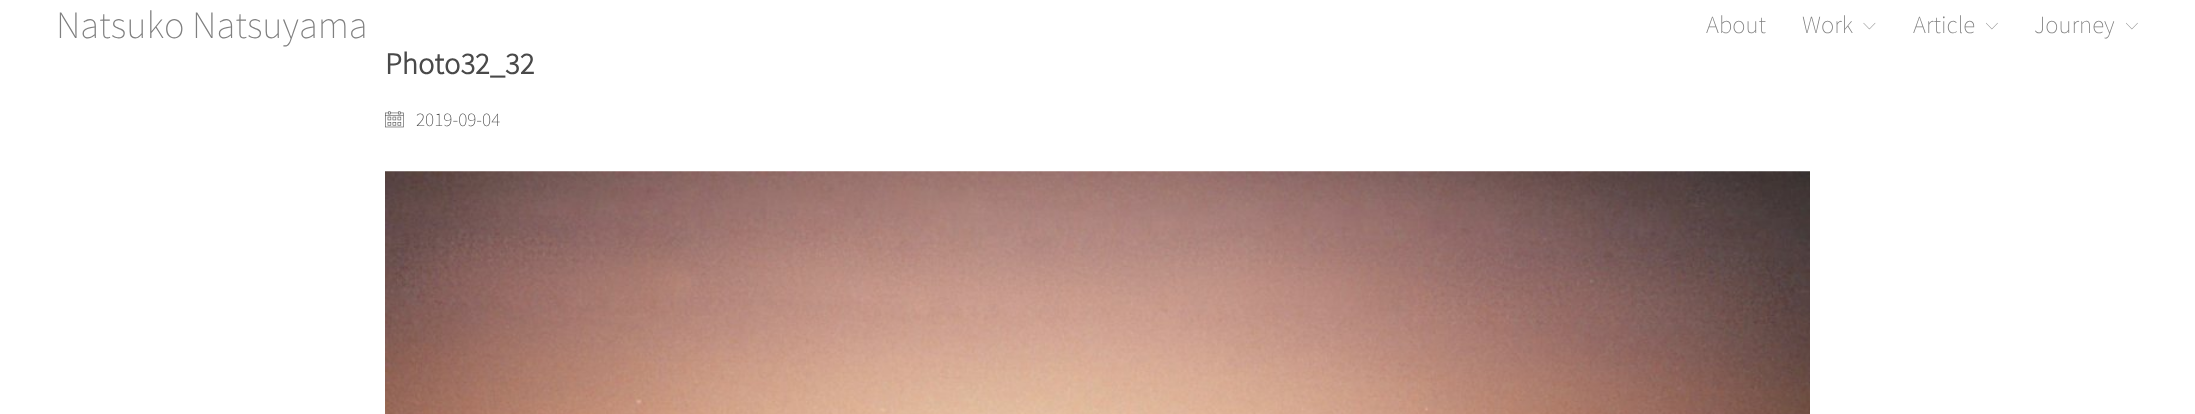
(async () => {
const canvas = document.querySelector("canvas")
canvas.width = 2195
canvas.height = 414
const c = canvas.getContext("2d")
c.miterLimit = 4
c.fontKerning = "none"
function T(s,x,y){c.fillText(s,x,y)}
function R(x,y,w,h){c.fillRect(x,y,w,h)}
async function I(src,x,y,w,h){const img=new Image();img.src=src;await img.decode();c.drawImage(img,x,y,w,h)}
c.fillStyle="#fff"
R(0,0,2195,414)
c.font="100 35px Noto Sans JP"
c.fillStyle="#7f7f7f"
T("Natsuko Natsuyama",56,38)
c.font="100 22.5px Noto Sans JP"
T("About",1706,33)
T("Work",1802,33)
await I("1.png",1863,22,13,8)
T("Article",1913,33)
await I("2.png",1986,22,12,8)
T("Journey",2034,33)
await I("2.png",2126,22,12,8)
c.font="bold 27.5px Noto Sans JP"
c.fillStyle="#494949"
T("Photo32_32",385,74)
await I("3.png",385,111,19,17)
c.font="100 17.5px Noto Sans JP"
T("2019-09-04",416,126)
await I("4.png",385,171,1425,243)
})()
